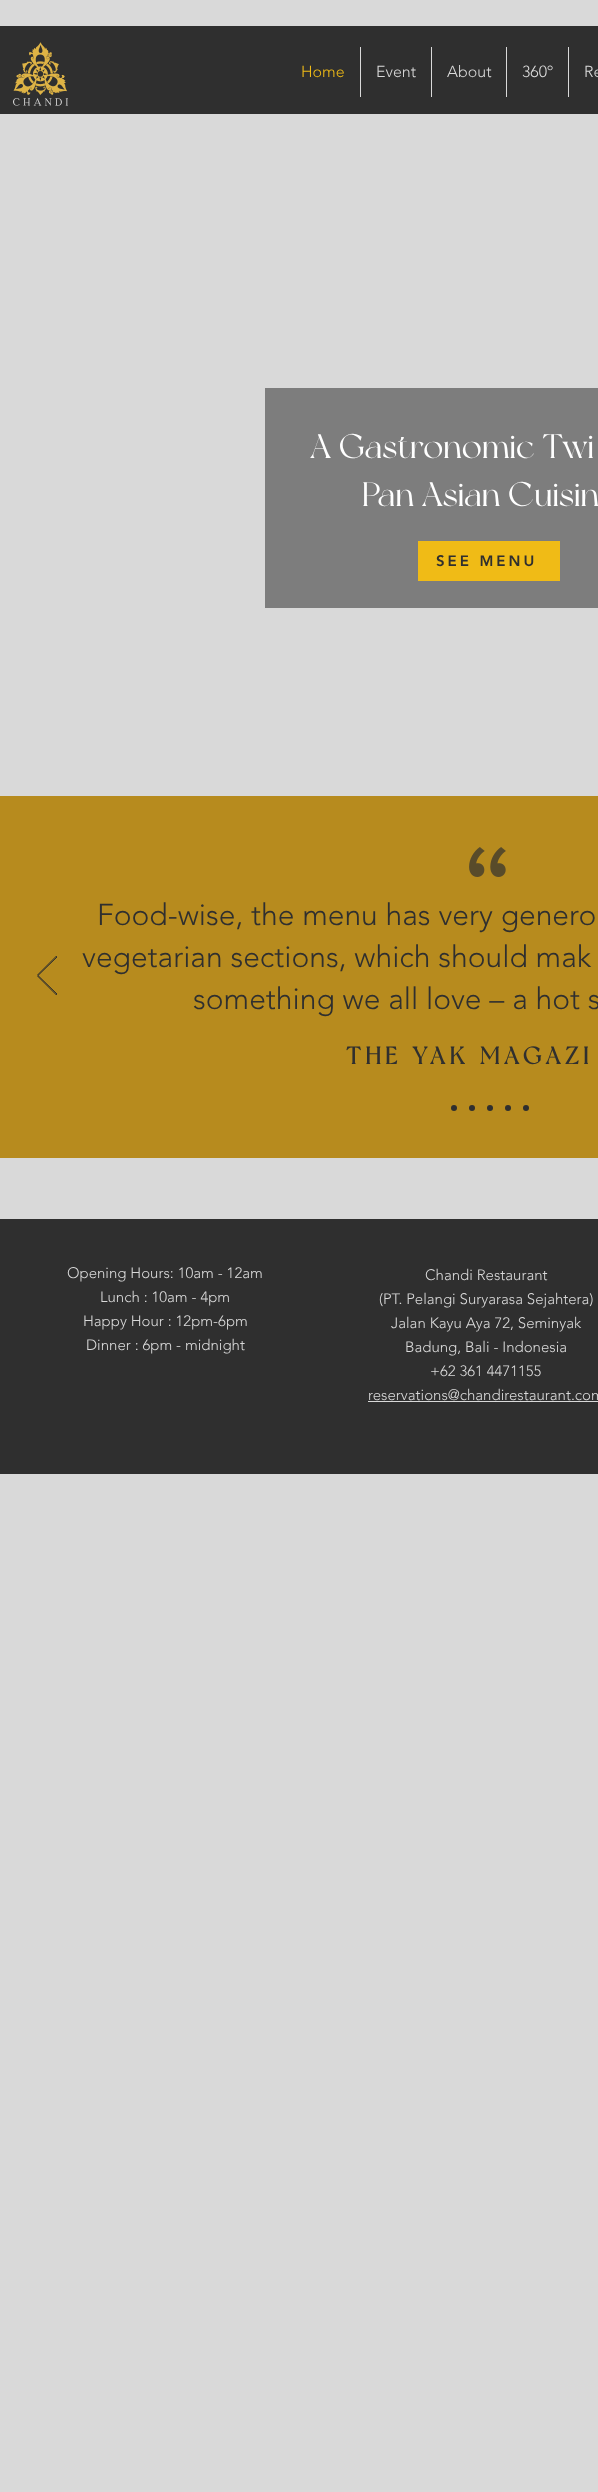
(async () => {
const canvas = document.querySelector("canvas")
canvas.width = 598
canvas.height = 2492
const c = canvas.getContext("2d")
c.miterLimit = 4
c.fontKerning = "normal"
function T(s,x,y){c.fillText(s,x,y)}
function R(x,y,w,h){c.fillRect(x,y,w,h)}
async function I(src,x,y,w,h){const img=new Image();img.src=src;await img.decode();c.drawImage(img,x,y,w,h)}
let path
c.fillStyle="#d9d9d9"
R(0,0,598,2492)
c.fillStyle="#2f2f2f"
R(0,26,598,88)
await I("1.png",13,42,55,64)
c.font="300 16px 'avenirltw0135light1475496'"
c.fillStyle="#f0bb16"
T("Home",301,77)
c.fillStyle="#d9d9d9"
R(360,47,1,50)
T("Event",376,77)
R(431,47,1,50)
T("About",447,77)
R(506,47,1,50)
T("360º",522,77)
R(568,47,1,50)
T("Re",584,77)
c.fillStyle="#7d7d7d"
R(265,388,333,220)
c.font="34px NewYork"
c.fillStyle="#fff"
T("A Gastronomic Twi",310,458)
T("Pan Asian Cuisin",362,506)
c.fillStyle="#f0bb16"
R(418,541,142,40)
c.letterSpacing="3px"
c.font="900 15px 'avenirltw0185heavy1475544'"
c.fillStyle="#2f2f2f"
T("SEE MENU",436,566)
c.fillStyle="#b78b1e"
R(0,796,598,362)
c.save()
c.beginPath()
c.rect(37,956,20,39)
c.clip()
path = new Path2D("M56.5 995l-19.5-19.5l19.5-19.5l.5 1l-19 18.5l19 18.5z")
c.strokeStyle="#2f2f2f"
c.stroke(path)
c.restore()
await I("2.png",469,847,37,30)
c.letterSpacing="0px"
c.font="300 30px 'avenirltw0135light1475496'"
c.fillStyle="#2f2f2f"
T("Food-wise, the menu has very genero",97,925)
T("vegetarian sections, which should mak",82,967)
T("something we all love – a hot s",193,1009)
c.letterSpacing="4.75px"
c.font="bold 24px NewYork"
T("THE YAK MAGAZI",346,1064)
c.beginPath()
c.arc(454,1108,3,0,7)
c.fill()
c.beginPath()
c.arc(472,1108,3,0,7)
c.fill()
c.beginPath()
c.arc(490,1108,3,0,7)
c.fill()
c.beginPath()
c.arc(508,1108,3,0,7)
c.fill()
c.beginPath()
c.arc(526,1108,3,0,7)
c.fill()
R(0,1219,598,255)
c.letterSpacing="0px"
c.font="300 15px 'avenirltw0135light1475496'"
c.fillStyle="#d9d9d9"
T("Opening Hours: 10am - 12am",67,1278)
T("Lunch : 10am - 4pm",100,1302)
T("Happy Hour : 12pm-6pm",83,1326)
T("Dinner : 6pm - midnight",86,1350)
T("Chandi Restaurant",425,1280)
T("(PT. Pelangi Suryarasa Sejahtera)",379,1304)
T("Jalan Kayu Aya 72, Seminyak",391,1328)
T("Badung, Bali - Indonesia",405,1352)
T("+62 361 4471155",430,1376)
T("reservations@chandirestaurant.com",368,1400)
R(368,1401,230,1)
})()
